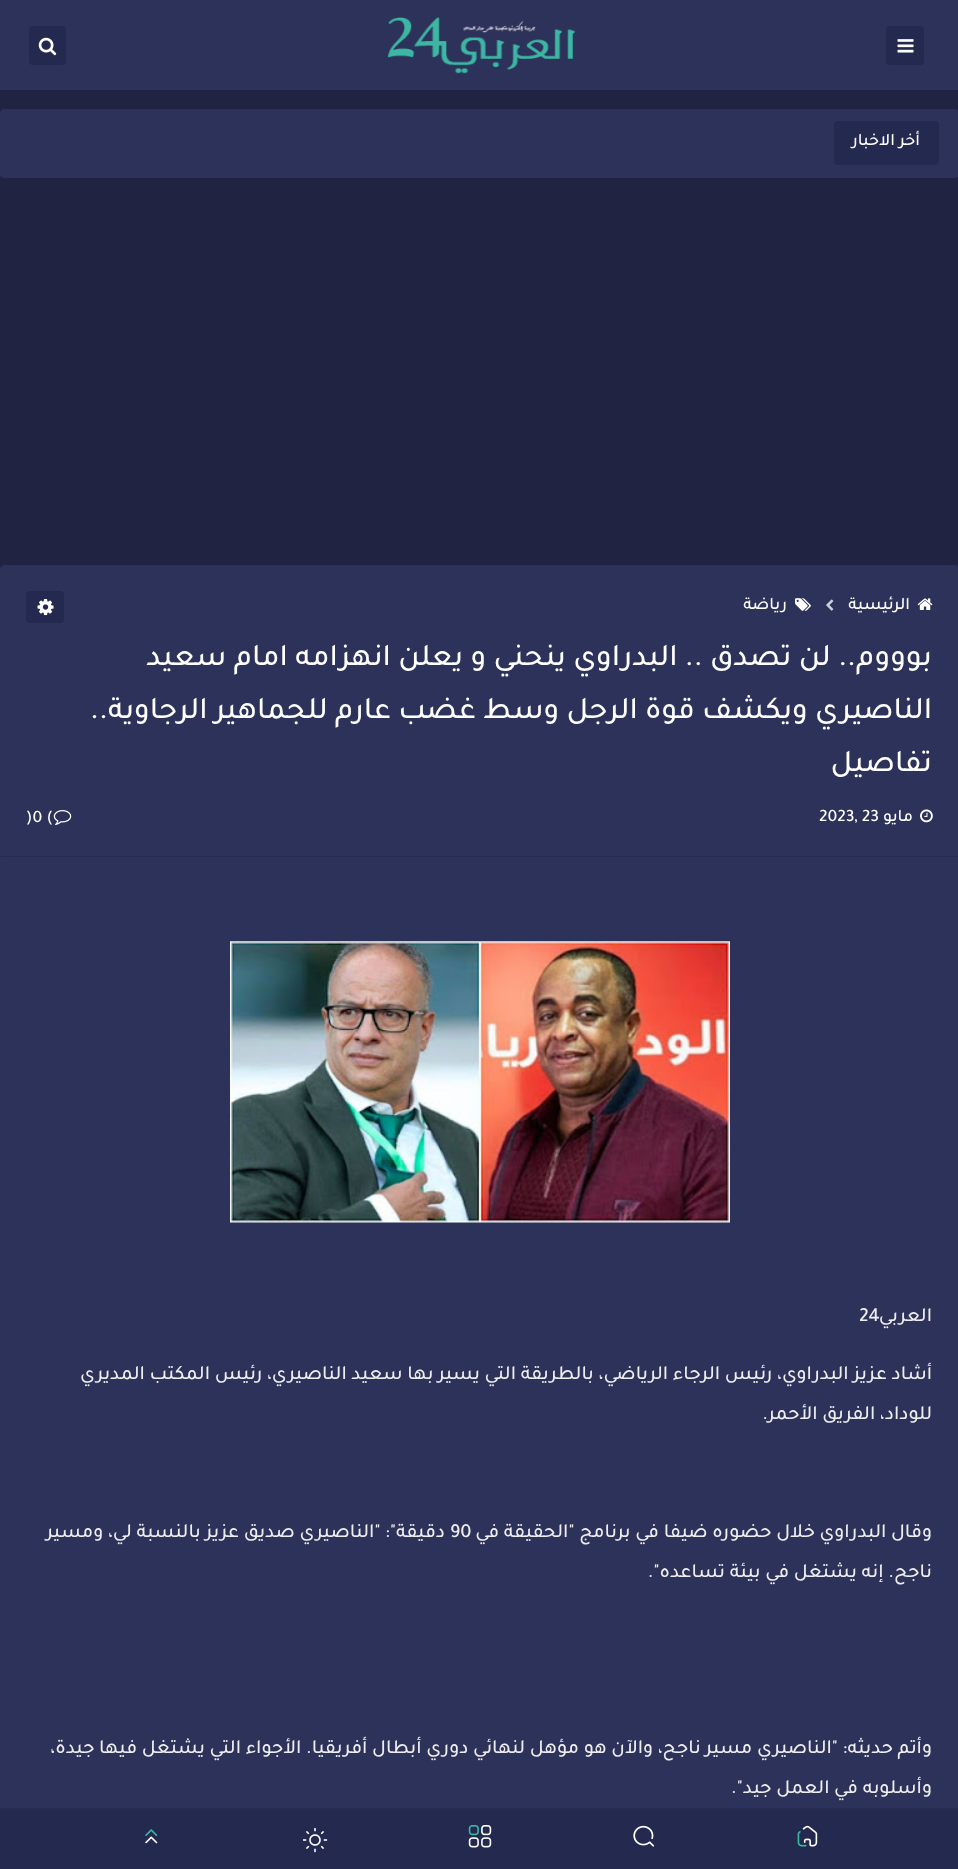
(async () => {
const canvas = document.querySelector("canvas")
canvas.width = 958
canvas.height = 1869
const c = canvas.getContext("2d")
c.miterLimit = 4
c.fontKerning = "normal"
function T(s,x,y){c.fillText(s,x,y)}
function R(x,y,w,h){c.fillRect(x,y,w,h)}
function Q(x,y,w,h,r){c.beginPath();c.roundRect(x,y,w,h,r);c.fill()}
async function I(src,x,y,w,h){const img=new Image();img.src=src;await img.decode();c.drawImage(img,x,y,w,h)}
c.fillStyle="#202442"
R(0,0,958,1869)
c.fillStyle="#2d325a"
R(0,0,958,90)
c.fillStyle="#242950"
Q(886,26,38,39,4)
await I("1.png",897,39,17,14)
await I("2.png",387,17,189,57)
Q(29,26,37,39,4)
await I("3.png",38,37,19,19)
c.fillStyle="#2d325a"
c.beginPath()
c.roundRect(.5,109.5,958,68,3.5)
c.fill()
c.strokeStyle="#2d325a"
c.stroke()
c.fillStyle="#242950"
Q(834,121,105,44,4)
c.direction="rtl"
c.font="500 17.5px Tajawal"
c.fillStyle="#fff"
T("أخر الاخبار",920,145)
c.beginPath()
c.roundRect(.5,565.5,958,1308,3.5)
c.stroke()
c.fillStyle="#2d325a"
c.beginPath()
c.roundRect(1,566,957,292,[2.5,2.5,0,0])
c.fill()
c.fillStyle="#262b52"
R(1,856,957,1)
await I("4.png",917,598,16,12)
c.fillStyle="#fff"
T("الرئيسية",910,609)
await I("5.png",826,599,8,12)
await I("6.png",795,598,16,13)
T("رياضة",787,609)
c.fillStyle="#242950"
Q(26,591,38,32,4)
await I("7.png",37,599,17,17)
c.font="500 31.25px Tajawal"
c.fillStyle="#fff"
T("بوووم.. لن تصدق .. البدراوي ينحني و يعلن انهزامه امام سعيد",932,665)
T("الناصيري ويكشف قوة الرجل وسط غضب عارم للجماهير الرجاوية..",932,718)
T("تفاصيل",932,771)
await I("8.png",920,809,13,14)
c.font="500 17.5px Tajawal"
T("مايو",913,821)
c.direction="ltr"
T("2023, 23",819,821)
await I("9.png",53,810,19,15)
T(")0 (",26,822)
c.fillStyle="#2d325a"
R(1,858,957,950)
await I("10.png",230,941,500,282)
c.direction="rtl"
c.font="500 20px Tajawal"
c.fillStyle="#eee"
T("العربي",932,1321)
c.direction="ltr"
T("24",859,1321)
c.direction="rtl"
T("أشاد عزيز البدراوي، رئيس الرجاء الرياضي، بالطريقة التي يسير بها سعيد الناصيري، رئيس المكتب المديري",932,1379)
T("للوداد، الفريق الأحمر.",932,1419)
T("وقال البدراوي خلال حضوره ضيفا في برنامج \"الحقيقة في",932,1537)
c.direction="ltr"
T("90",450,1537)
c.direction="rtl"
T("دقيقة\": \"الناصيري صديق عزيز بالنسبة لي، ومسير",445,1537)
T("ناجح. إنه يشتغل في بيئة تساعده\".",932,1577)
T("وأتم حديثه: \"الناصيري مسير ناجح، والآن هو مؤهل لنهائي دوري أبطال أفريقيا. الأجواء التي يشتغل فيها جيدة،",932,1753)
T("وأسلوبه في العمل جيد\".",932,1793)
c.fillStyle="#242950"
R(0,1811,958,58)
c.fillStyle="#262b52"
R(0,1808,958,3)
await I("11.png",797,1825,21,22)
await I("12.png",633,1825,22,22)
await I("13.png",468,1825,24,23)
await I("14.png",303,1828,25,25)
await I("15.png",145,1829,13,15)
})()
